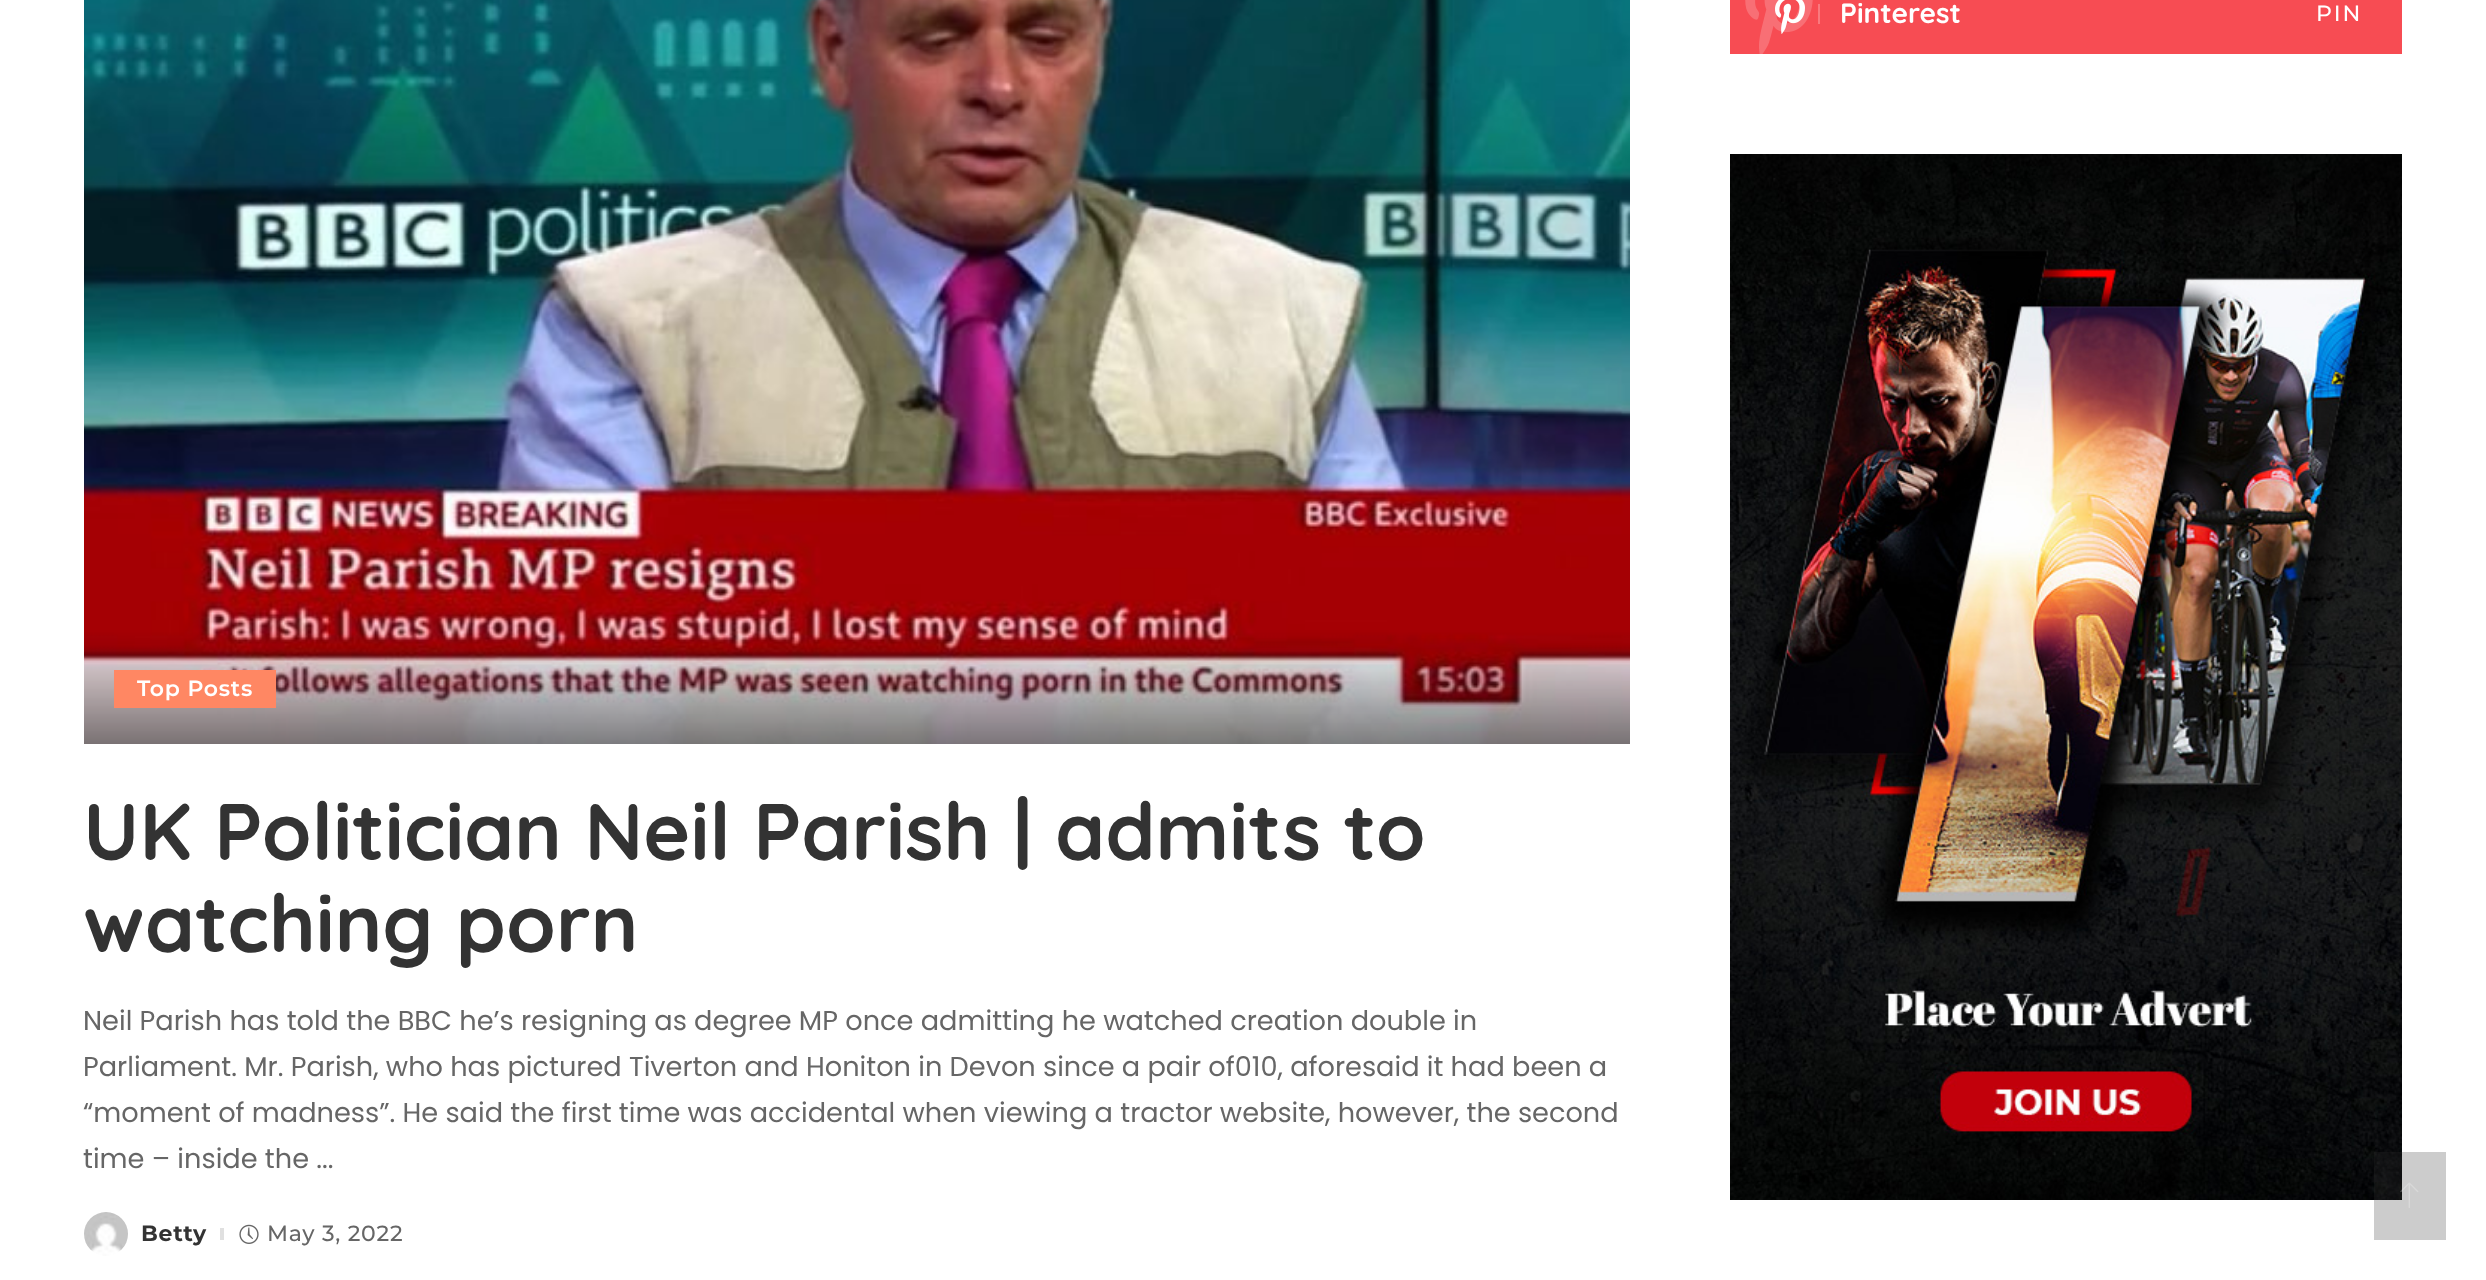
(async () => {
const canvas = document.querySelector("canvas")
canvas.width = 2486
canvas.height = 1280
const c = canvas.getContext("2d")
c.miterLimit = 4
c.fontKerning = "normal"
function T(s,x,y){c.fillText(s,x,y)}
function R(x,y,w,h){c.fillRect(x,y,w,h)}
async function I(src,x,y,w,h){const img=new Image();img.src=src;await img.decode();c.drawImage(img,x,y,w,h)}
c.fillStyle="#fff"
R(0,0,2486,1280)
c.fillStyle="#f74c53"
R(1730,0,672,54)
await I("1.png",1745,0,68,54)
await I("2.png",1775,0,30,34)
c.fillStyle="#f9797e"
R(1818,4,2,20)
c.font="bold 28px Quicksand"
c.fillStyle="#fff"
T("Pinterest",1840,23)
c.letterSpacing="2px"
c.font="500 22px Montserrat"
T("PIN",2316,21)
await I("3.png",1730,154,672,1046)
await I("4.png",84,0,1546,744)
c.fillStyle="#ff8763"
R(114,670,162,38)
c.letterSpacing="0.75px"
c.font="600 22px Montserrat"
c.fillStyle="#fff"
T("Top Posts",137,696)
c.letterSpacing="0px"
c.font="bold 80px Quicksand"
c.fillStyle="#333"
T("UK Politician Neil Parish | admits to",83,860)
T("watching porn",83,952)
c.font="27.2px Poppins"
c.fillStyle="#666"
T("Neil Parish has told the BBC he’s resigning as degree MP once admitting he watched creation double in",83,1030)
T("Parliament. Mr. Parish, who has pictured Tiverton and Honiton in Devon since a pair of010, aforesaid it had been a",83,1076)
T("“moment of madness”. He said the first time was accidental when viewing a tractor website, however, the second",83,1122)
T("time – inside the ...",83,1168)
await I("5.png",84,1212,44,44)
c.letterSpacing="0.75px"
c.font="bold 22px Montserrat"
c.fillStyle="#333"
T("Betty",141,1241)
c.fillStyle="#e0e0e0"
R(220,1228,4,12)
await I("6.png",239,1224,20,20)
c.font="500 22px Montserrat"
c.fillStyle="#666"
T("May 3, 2022",267,1241)
c.fillStyle="#33333340"
R(2374,1152,72,88)
await I("7.png",2400,1182,19,26)
})()
